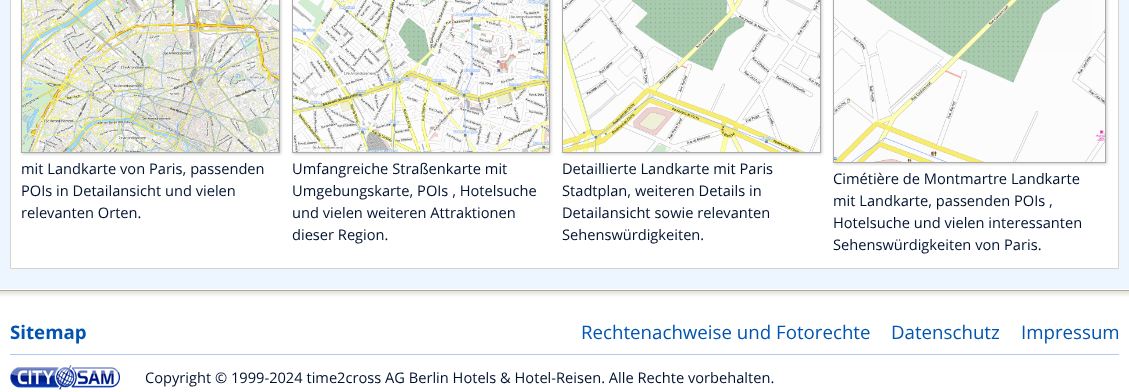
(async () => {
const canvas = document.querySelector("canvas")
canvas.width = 1129
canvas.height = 392
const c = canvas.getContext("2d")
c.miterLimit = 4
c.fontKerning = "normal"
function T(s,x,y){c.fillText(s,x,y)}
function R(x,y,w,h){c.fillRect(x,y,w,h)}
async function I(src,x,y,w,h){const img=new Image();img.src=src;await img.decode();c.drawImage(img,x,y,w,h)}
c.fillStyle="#fff"
R(0,0,1129,392)
c.fillStyle="#edf6ff"
R(0,0,1129,289)
c.fillStyle="#fff"
c.beginPath()
c.rect(10.5,-.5,1108,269)
c.fill()
c.strokeStyle="#d7d4c5"
c.stroke()
c.fillStyle="#ccc"
c.filter="blur(1.5px)"
c.beginPath()
c.rect(22,-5,259,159)
c.fill()
c.filter="none"
c.strokeStyle="#aaa"
c.strokeRect(21.5,-.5,258,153)
await I("1.png",22,0,257,152)
c.font="14.65px Open Sans"
c.fillStyle="#00122f"
T("mit Landkarte von Paris, passenden",21,174)
T("POIs in Detailansicht und vielen",21,196)
T("relevanten Orten.",21,218)
c.fillStyle="#ccc"
c.filter="blur(1.5px)"
c.beginPath()
c.rect(293,-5,258,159)
c.fill()
c.filter="none"
c.strokeRect(292.5,-.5,257,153)
await I("2.png",293,0,256,152)
c.fillStyle="#00122f"
T("Umfangreiche Straßenkarte mit",292,174)
T("Umgebungskarte, POIs , Hotelsuche",292,196)
T("und vielen weiteren Attraktionen",292,218)
T("dieser Region.",292,240)
c.fillStyle="#ccc"
c.filter="blur(1.5px)"
c.beginPath()
c.rect(563,-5,259,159)
c.fill()
c.filter="none"
c.strokeRect(562.5,-.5,258,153)
await I("3.png",563,0,257,152)
c.fillStyle="#00122f"
T("Detaillierte Landkarte mit Paris",562,174)
T("Stadtplan, weiteren Details in",562,196)
T("Detailansicht sowie relevanten",562,218)
T("Sehenswürdigkeiten.",562,240)
c.fillStyle="#ccc"
c.filter="blur(1.5px)"
c.beginPath()
c.rect(834,-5,273,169)
c.fill()
c.filter="none"
c.strokeRect(833.5,-.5,272,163)
await I("4.png",834,0,271,162)
c.fillStyle="#00122f"
T("Cimétière de Montmartre Landkarte",833,184)
T("mit Landkarte, passenden POIs ,",833,206)
T("Hotelsuche und vielen interessanten",833,228)
T("Sehenswürdigkeiten von Paris.",833,250)
await I("5.png",0,290,1129,7)
c.font="bold 18.7px Open Sans"
c.fillStyle="#0055b2"
T("Sitemap",10,339)
c.font="18.7px Open Sans"
T("Rechtenachweise und Fotorechte",581,339)
T("Datenschutz",891,339)
T("Impressum",1021,339)
c.fillStyle="#afcbfd"
R(10,354,1109,1)
await I("6.png",10,365,110,25)
c.font="14.65px Open Sans"
c.fillStyle="#00122f"
T("Copyright © 1999-2024 time2cross AG Berlin Hotels & Hotel-Reisen. Alle Rechte vorbehalten.",145,383)
})()
